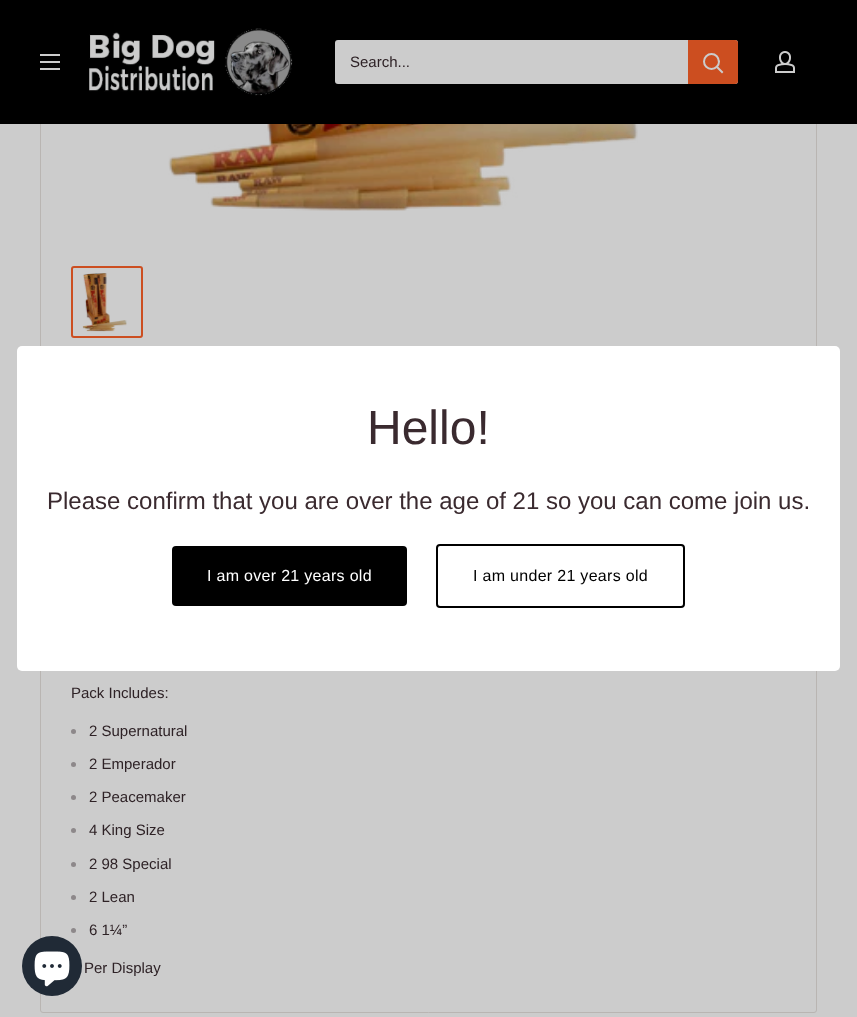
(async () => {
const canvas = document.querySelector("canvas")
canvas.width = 857
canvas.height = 1017
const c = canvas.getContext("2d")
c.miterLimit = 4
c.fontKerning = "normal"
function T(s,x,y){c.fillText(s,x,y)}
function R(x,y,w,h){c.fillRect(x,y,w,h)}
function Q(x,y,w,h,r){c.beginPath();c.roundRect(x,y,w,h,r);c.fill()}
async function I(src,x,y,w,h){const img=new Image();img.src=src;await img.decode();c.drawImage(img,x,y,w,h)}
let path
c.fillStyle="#ccc"
R(0,0,857,1017)
c.strokeStyle="#b9b5b2"
c.strokeRect(40.5,-.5,776,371)
c.fillStyle="#000"
R(0,0,857,124)
await I("1.png",40,54,20,16)
await I("2.png",89,28,204,68)
c.fillStyle="#ccc"
Q(335,40,403,44,3)
c.font="15px Arimo"
c.fillStyle="#2e2226"
T("Search...",350,67)
c.fillStyle="#cc4e20"
c.beginPath()
c.roundRect(688,40,50,44,[0,3,3,0])
c.fill()
path = new Path2D("M722 72l-5-5")
c.strokeStyle="#ccc"
c.lineWidth=2
c.lineCap="square"
c.stroke(path)
c.beginPath()
c.arc(711.5,61.5,7.5,0,7)
c.stroke()
await I("3.png",775,51,20,22)
c.beginPath()
c.roundRect(40.5,593.5,776,419,2.5)
c.strokeStyle="#b9b5b2"
c.lineWidth=1
c.stroke()
c.fillStyle="#fff"
Q(17,346,823,325,5)
c.font="48px Arimo"
c.fillStyle="#3a2a2f"
T("Hello!",367,444)
c.font="24px Arimo"
T("Please confirm that you are over the age of 21 so you can come join us.",47,509)
c.fillStyle="#000"
Q(172,546,235,60,4)
c.letterSpacing="0.3px"
c.font="16px Arimo"
c.fillStyle="#fff"
T("I am over 21 years old",207,581)
c.beginPath()
c.roundRect(437,545,247,62,3)
c.strokeStyle="#000"
c.lineWidth=2
c.stroke()
c.fillStyle="#000"
T("I am under 21 years old",473,581)
c.fillStyle="#202a36"
c.beginPath()
c.arc(52,966,30,0,7)
c.fill()
await I("4.png",34,951,36,36)
await I("5.png",168,124,470,87)
c.beginPath()
c.roundRect(72,267,70,70,2)
c.strokeStyle="#cc4e20"
c.stroke()
await I("6.png",82,273,45,59)
c.letterSpacing="0px"
c.font="15px Arimo"
c.fillStyle="#2e2226"
T("Pack Includes:",71,698)
c.fillStyle="#8d888a"
c.beginPath()
c.arc(73.5,731.5,2.5,0,7)
c.fill()
c.fillStyle="#2e2226"
T("2 Supernatural",89,736)
c.fillStyle="#8d888a"
c.beginPath()
c.arc(73.5,764.5,2.5,0,7)
c.fill()
c.fillStyle="#2e2226"
T("2 Emperador",89,769)
c.fillStyle="#8d888a"
c.beginPath()
c.arc(73.5,797.5,2.5,0,7)
c.fill()
c.fillStyle="#2e2226"
T("2 Peacemaker",89,802)
c.fillStyle="#8d888a"
c.beginPath()
c.arc(73.5,830.5,2.5,0,7)
c.fill()
c.fillStyle="#2e2226"
T("4 King Size",89,835)
c.fillStyle="#8d888a"
c.beginPath()
c.arc(73.5,864.5,2.5,0,7)
c.fill()
c.fillStyle="#2e2226"
T("2 98 Special",89,869)
c.fillStyle="#8d888a"
c.beginPath()
c.arc(73.5,897.5,2.5,0,7)
c.fill()
c.fillStyle="#2e2226"
T("2 Lean",89,902)
c.fillStyle="#8d888a"
c.beginPath()
c.arc(73.5,930.5,2.5,0,7)
c.fill()
c.fillStyle="#2e2226"
T("6 1¼”",89,935)
T("Per Display",84,973)
})()
